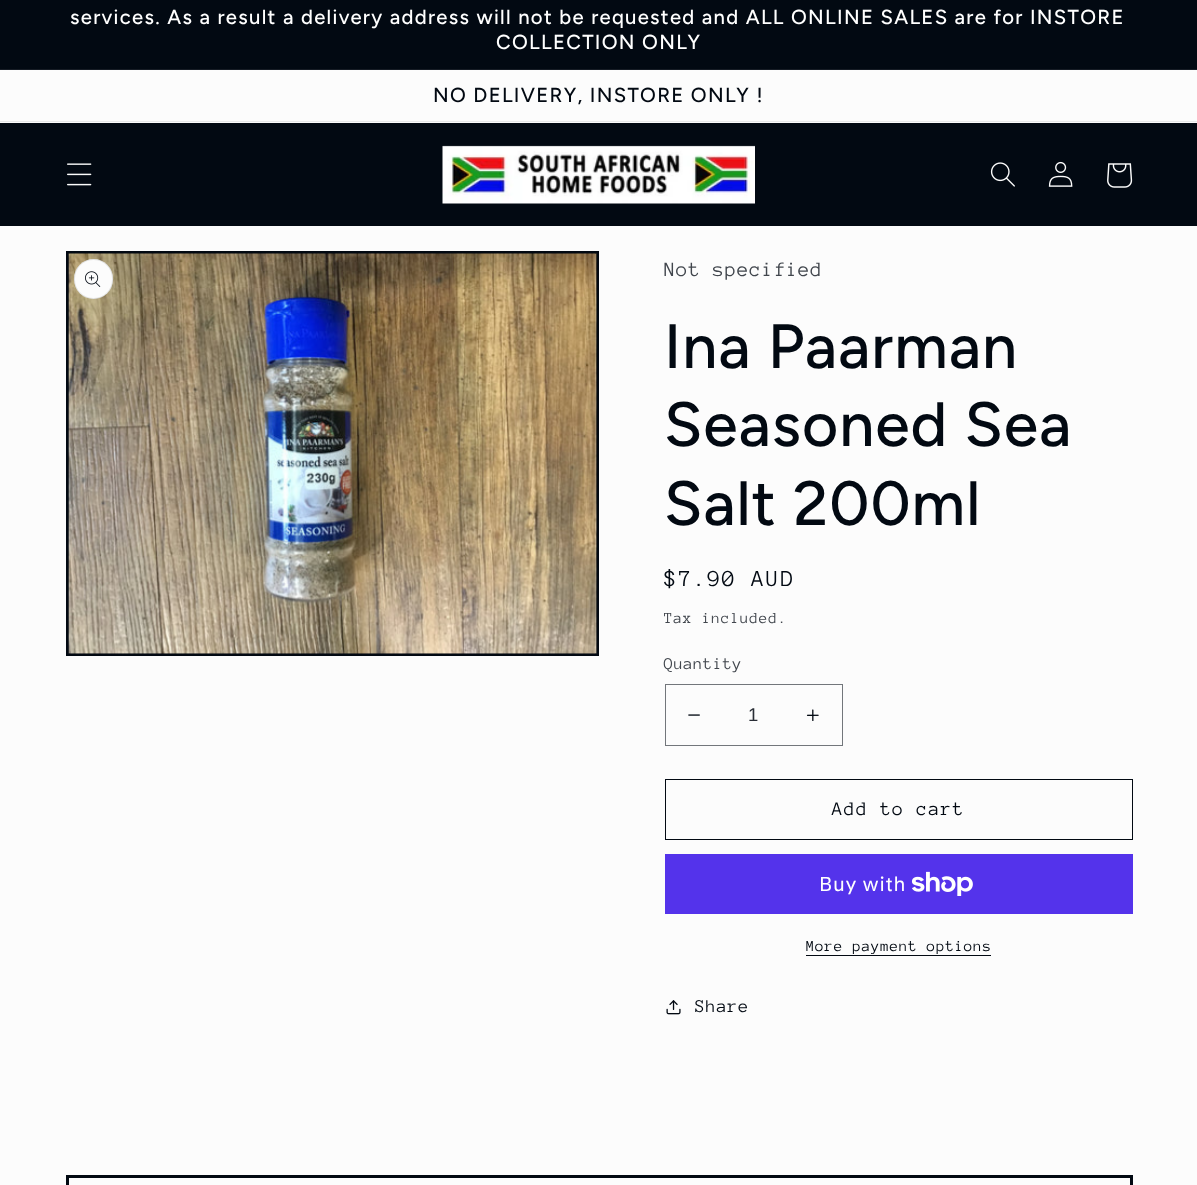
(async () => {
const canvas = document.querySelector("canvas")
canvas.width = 1197
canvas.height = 1185
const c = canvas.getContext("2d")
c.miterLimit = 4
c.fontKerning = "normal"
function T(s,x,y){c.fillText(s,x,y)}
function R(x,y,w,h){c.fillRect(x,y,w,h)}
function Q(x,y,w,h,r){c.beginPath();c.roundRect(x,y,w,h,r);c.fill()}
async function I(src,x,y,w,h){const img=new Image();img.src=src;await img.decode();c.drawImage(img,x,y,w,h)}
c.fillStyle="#fcfcfc"
R(0,0,1197,1185)
c.fillStyle="#020912"
R(0,0,1197,69)
c.fillStyle="#161c25"
R(0,69,1197,1)
c.letterSpacing="1.3px"
c.font="500 20.3px Figtree"
c.fillStyle="#fff"
T("services. As a result a delivery address will not be requested and ALL ONLINE SALES are for INSTORE",70,24)
T("COLLECTION ONLY",496,49)
c.fillStyle="#e8e9e9"
R(0,121,1197,1)
c.fillStyle="#020912"
T("NO DELIVERY, INSTORE ONLY !",433,102)
R(0,123,1197,103)
await I("1.png",67,163,25,23)
await I("2.png",442,145,313,59)
await I("3.png",990,162,25,25)
await I("4.png",1048,161,25,26)
await I("5.png",1107,163,26,25)
c.strokeStyle="#020912"
c.lineWidth=3
c.strokeRect(67.5,252.5,530,402)
await I("6.png",68,253,529,401)
c.fillStyle="#fcfcfc"
Q(74,259,39,40,19.5)
c.beginPath()
c.roundRect(74.5,259.5,38,39,19)
c.strokeStyle="#0209121a"
c.lineWidth=1
c.stroke()
await I("7.png",85,271,16,16)
c.letterSpacing="0.75px"
c.font="21px Anonymous Pro"
c.fillStyle="#41464d"
T("Not specified",664,276)
c.letterSpacing="1px"
c.font="500 62.5px Figtree"
c.fillStyle="#020912"
T("Ina Paarman",664,368)
T("Seasoned Sea",664,446)
T("Salt 200ml",664,525)
c.letterSpacing="1.75px"
c.font="23.5px Anonymous Pro"
T("$7.90 AUD",664,586)
c.letterSpacing="0.9px"
c.font="15.75px Anonymous Pro"
c.fillStyle="#41464d"
T("Tax included.",664,623)
c.letterSpacing="0.5px"
c.font="17px Anonymous Pro"
T("Quantity",664,669)
await I("8.png",688,714,12,2)
await I("9.png",806,709,13,12)
c.strokeStyle="#72767b"
c.strokeRect(665.5,684.5,177,61)
c.letterSpacing="0px"
c.font="18.5px Liberation Sans"
c.fillStyle="#282d35"
T("1",748,721)
c.strokeStyle="#020912"
c.strokeRect(665.5,779.5,467,60)
c.letterSpacing="1.3px"
c.font="19.75px Anonymous Pro"
c.fillStyle="#020912"
T("Add to cart",832,815)
c.fillStyle="#5433eb"
R(665,854,468,60)
c.letterSpacing="0.75px"
c.font="20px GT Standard"
c.fillStyle="#fff"
T("Buy with",819,891)
await I("10.png",911,871,62,25)
c.letterSpacing="0.7px"
c.font="15.75px Anonymous Pro"
c.fillStyle="#020912"
T("More payment options",806,951)
R(806,955,185,1)
await I("11.png",666,1000,15,15)
c.letterSpacing="0.75px"
c.font="18.5px Anonymous Pro"
T("Share",695,1012)
c.lineWidth=3
c.strokeRect(67.5,1176.5,1064,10)
})()
